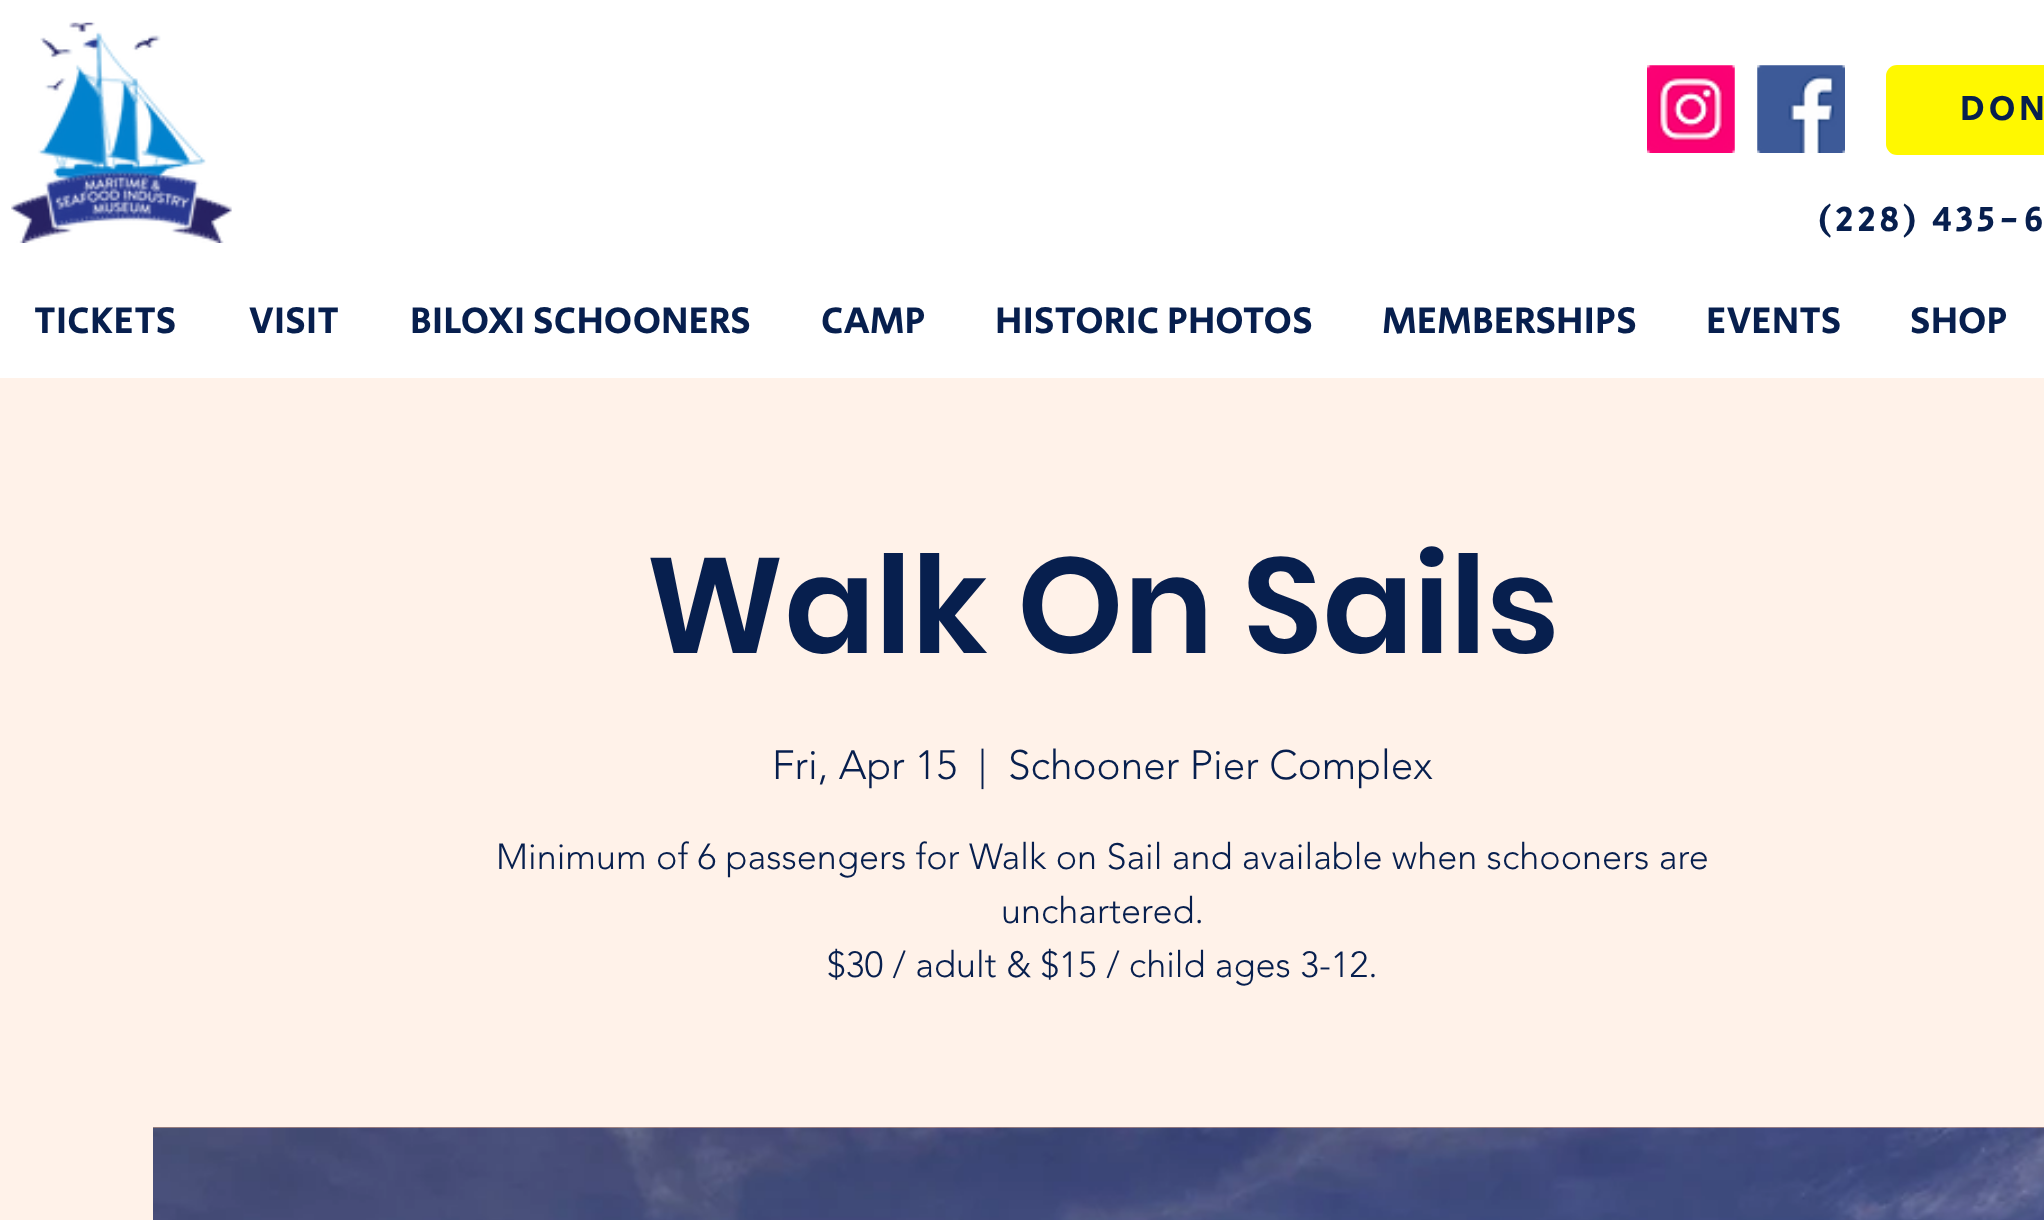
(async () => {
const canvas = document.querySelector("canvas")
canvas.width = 2044
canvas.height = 1220
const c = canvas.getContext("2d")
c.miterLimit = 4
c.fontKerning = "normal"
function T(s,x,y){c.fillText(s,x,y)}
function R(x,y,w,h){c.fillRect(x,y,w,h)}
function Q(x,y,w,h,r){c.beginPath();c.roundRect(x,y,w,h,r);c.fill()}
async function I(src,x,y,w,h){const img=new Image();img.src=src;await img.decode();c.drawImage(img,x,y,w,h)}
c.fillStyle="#fff"
R(0,0,2044,1220)
await I("1.png",11,22,221,221)
await I("2.png",1647,65,88,88)
await I("3.png",1757,65,88,88)
c.fillStyle="#fff800"
Q(1886,65,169,90,11)
c.letterSpacing="3.6px"
c.font="36px Secular One"
c.fillStyle="#071f4e"
T("DON",1960,120)
T("(228) 435-6",1817,231)
c.letterSpacing="0px"
c.font="38.25px Secular One"
T("TICKETS",34,333)
T("VISIT",249,333)
T("BILOXI SCHOONERS",410,333)
T("CAMP",821,333)
T("HISTORIC PHOTOS",995,333)
T("MEMBERSHIPS",1382,333)
T("EVENTS",1706,333)
T("SHOP",1910,333)
c.fillStyle="#fff2e9"
R(0,378,2044,842)
c.font="600 135px Poppins"
c.fillStyle="#071f4e"
T("Walk On Sails",646,653)
c.font="300 40.5px 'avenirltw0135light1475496'"
T("Fri, Apr 15",772,779)
T("|",978,779)
T("Schooner Pier Complex",1008,779)
c.font="300 36px 'avenirltw0135light1475496'"
T("Minimum of 6 passengers for Walk on Sail and available when schooners are",496,869)
T("unchartered.",1001,923)
T("$30 / adult & $15 / child ages 3-12.",827,977)
c.fillStyle="#ffbc8e"
R(153,1127,1891,1)
await I("4.png",153,1127,1891,93)
})()
